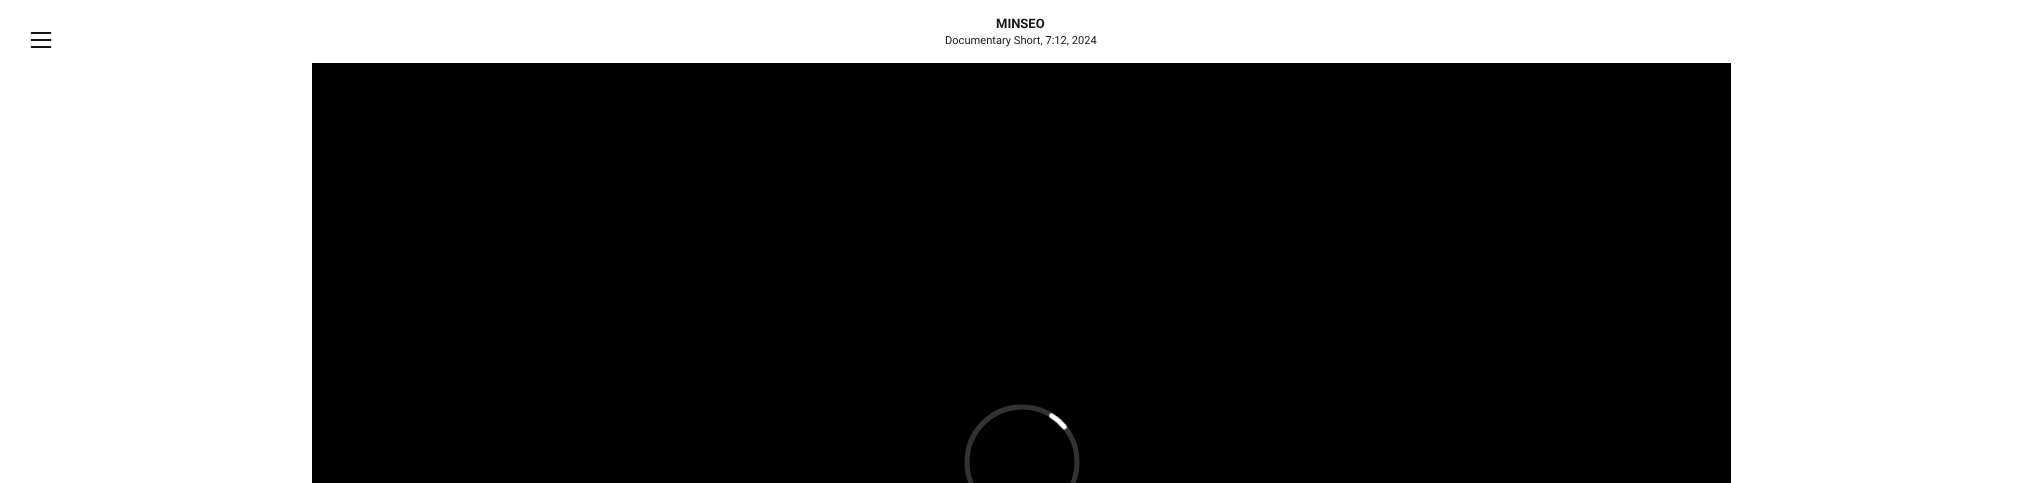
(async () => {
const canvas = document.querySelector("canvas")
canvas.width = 2042
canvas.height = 483
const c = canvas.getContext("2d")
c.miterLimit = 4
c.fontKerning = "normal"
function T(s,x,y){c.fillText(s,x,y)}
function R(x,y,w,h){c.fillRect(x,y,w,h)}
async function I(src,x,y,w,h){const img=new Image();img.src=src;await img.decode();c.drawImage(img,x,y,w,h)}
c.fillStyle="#fff"
R(0,0,2042,483)
await I("1.png",30,32,22,16)
c.font="bold 13px Roboto"
c.fillStyle="#171717"
T("MINSEO",996,28)
c.font="11.1px Roboto"
T("Documentary Short, 7:12, 2024",945,44)
await I("2.png",312,63,1419,420)
})()
